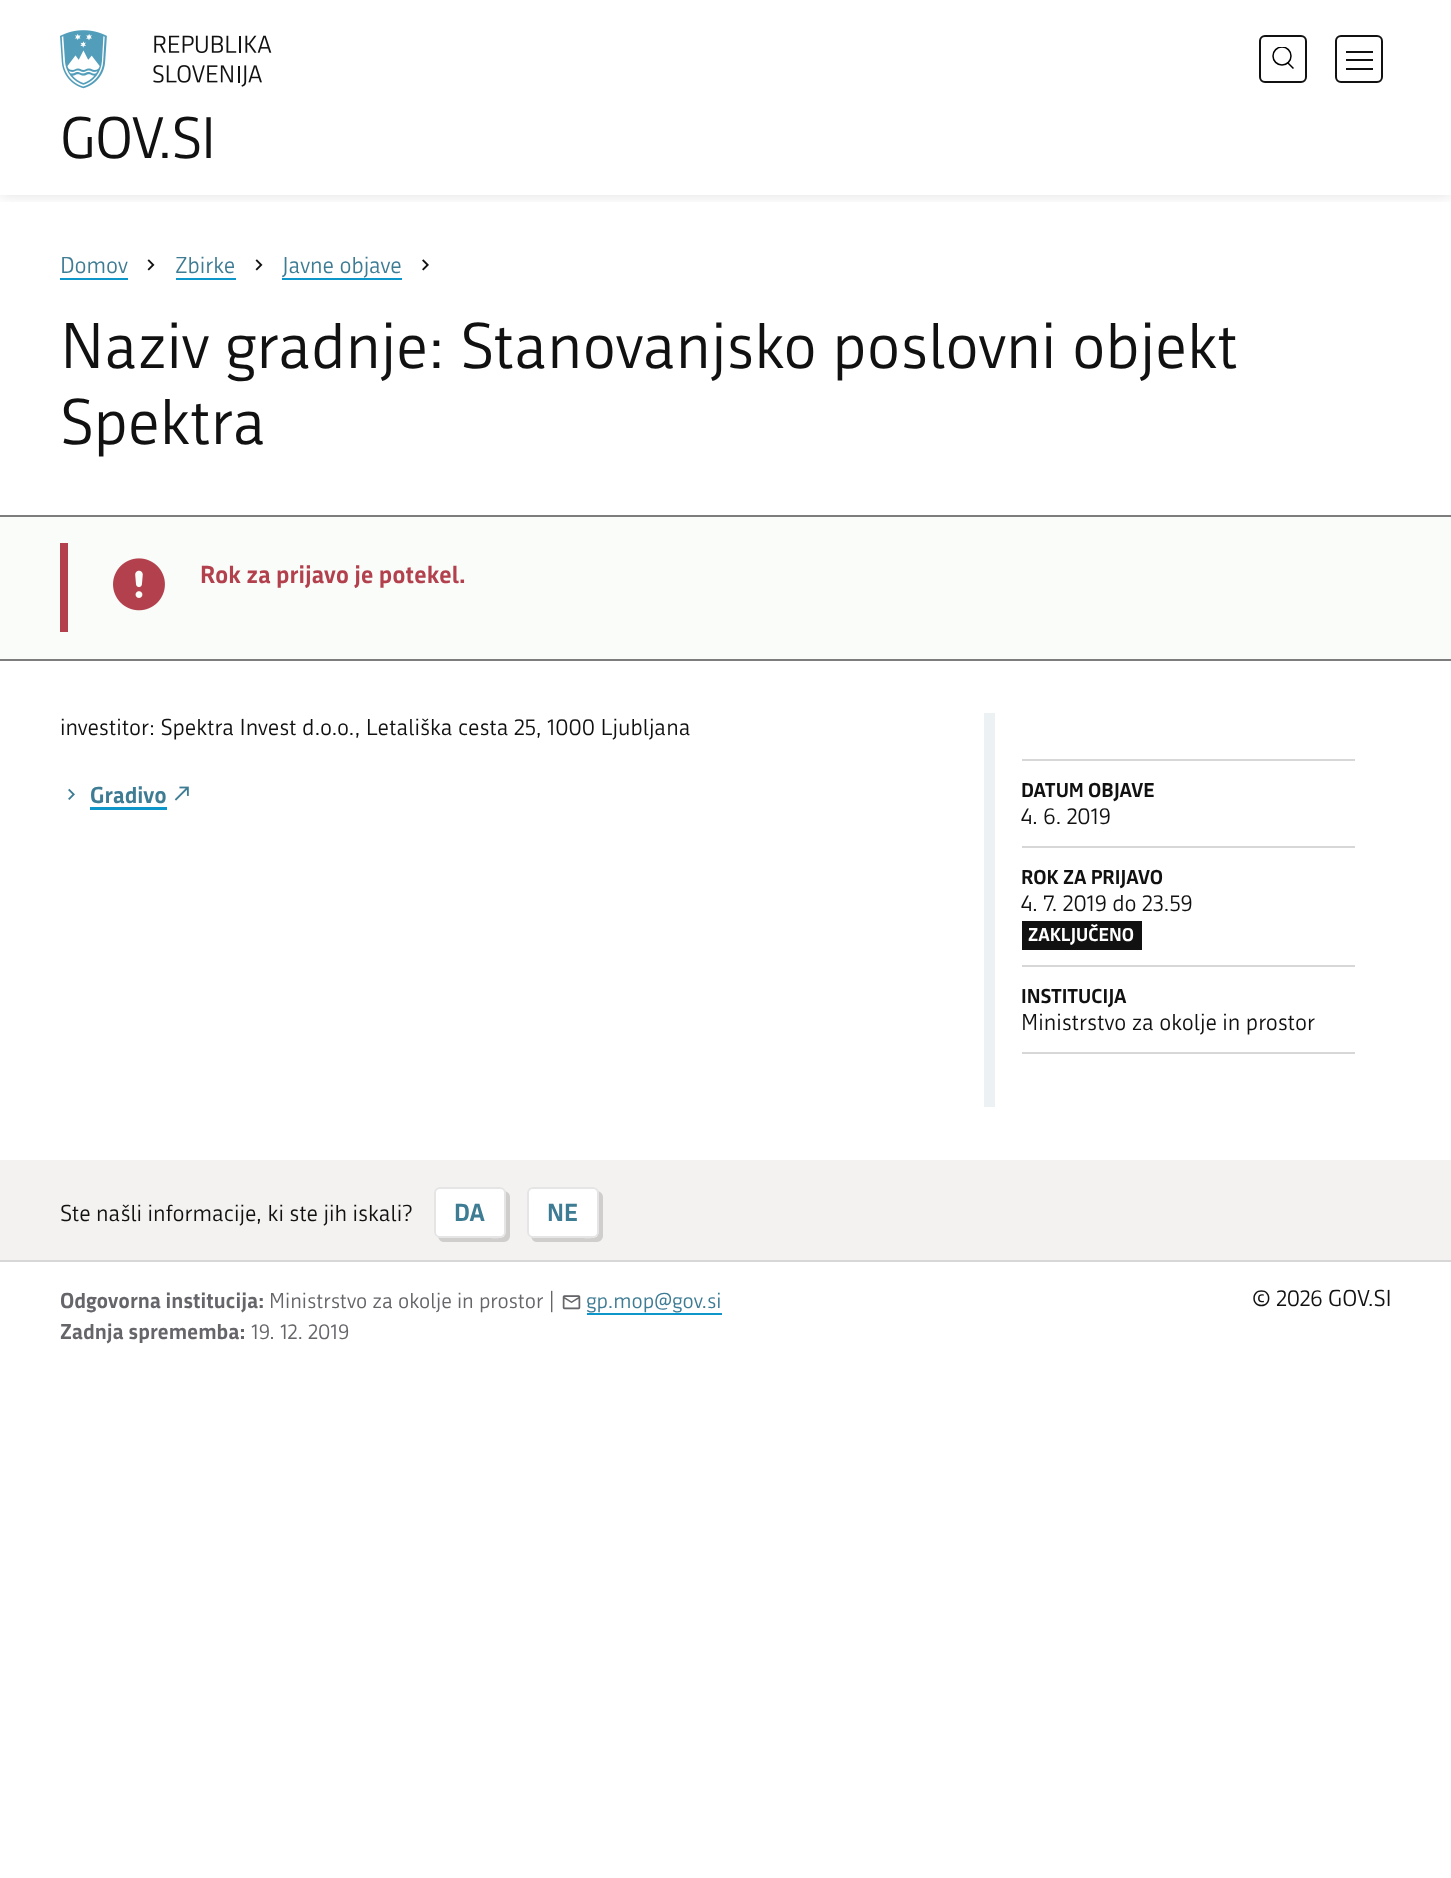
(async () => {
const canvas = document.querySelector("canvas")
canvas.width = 1451
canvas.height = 1878
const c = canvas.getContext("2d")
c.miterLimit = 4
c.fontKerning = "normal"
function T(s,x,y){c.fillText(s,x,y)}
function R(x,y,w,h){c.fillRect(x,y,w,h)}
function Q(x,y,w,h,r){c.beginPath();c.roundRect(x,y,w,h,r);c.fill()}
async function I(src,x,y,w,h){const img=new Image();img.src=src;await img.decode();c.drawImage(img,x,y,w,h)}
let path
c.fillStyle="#fff"
R(0,0,1451,1878)
c.save()
c.beginPath()
c.rect(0,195,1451,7)
c.clip()
c.fillStyle="#0000001f"
c.filter="blur(7.5px)"
c.beginPath()
c.rect(0,0,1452,195)
c.fill()
c.filter="none"
c.restore()
c.beginPath()
c.roundRect(1260,36,46,46,5)
c.strokeStyle="#111"
c.lineWidth=2
c.stroke()
c.save()
c.beginPath()
c.rect(1272,47,23,22)
c.clip()
c.beginPath()
c.arc(1282,56,9,0,7)
c.strokeStyle="#000"
c.lineWidth=1.5
c.stroke()
c.restore()
path = new Path2D("M1287.5 62.5l6 6")
c.strokeStyle="#000"
c.lineWidth=1.5
c.stroke(path)
c.beginPath()
c.roundRect(1336,36,46,46,5)
c.strokeStyle="#111"
c.lineWidth=2
c.stroke()
c.fillStyle="#111"
R(1346,68,27,2)
R(1346,51,27,2)
R(1346,59,27,2)
await I("1.png",60,30,212,59)
c.letterSpacing="-1px"
c.font="57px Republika"
T("GOV.SI",60,158)
c.letterSpacing="0px"
c.font="22.5px Republika"
c.fillStyle="#3e7c94"
T("Domov",60,273)
c.fillStyle="#0d96ca"
R(60,278,68,2)
await I("2.png",147,259,8,12)
c.fillStyle="#3e7c94"
T("Zbirke",175,273)
c.fillStyle="#0d96ca"
R(176,278,60,2)
await I("2.png",255,259,8,12)
c.fillStyle="#3e7c94"
T("Javne objave",282,273)
c.fillStyle="#0d96ca"
R(282,278,120,2)
await I("3.png",422,259,7,12)
c.font="63px Republika"
c.fillStyle="#111"
T("Naziv gradnje: Stanovanjsko poslovni objekt",60,368)
T("Spektra",60,444)
c.fillStyle="#fafcfa"
R(0,517,1451,142)
c.fillStyle="#7d7d7d"
R(0,515,1451,2)
R(0,659,1451,2)
c.fillStyle="#b2414d"
R(60,543,8,89)
await I("4.png",113,558,52,53)
c.font="bold 24px Republika"
T("Rok za prijavo je potekel.",200,583)
c.font="22.5px Republika"
c.fillStyle="#111"
T("investitor: Spektra Invest d.o.o., Letališka cesta 25, 1000 Ljubljana",60,735)
await I("5.png",68,788,7,12)
c.font="bold 22.5px Republika"
c.fillStyle="#3e7c94"
T("Gradivo",90,803)
c.fillStyle="#0d96ca"
R(90,807,77,3)
await I("6.png",174,786,15,15)
c.fillStyle="#ecf2f4"
R(984,713,11,394)
c.fillStyle="#d7d7d7"
R(1022,759,333,2)
R(1022,846,333,2)
c.font="bold 19.5px Republika"
c.fillStyle="#111"
T("DATUM OBJAVE",1021,797)
c.font="22.5px Republika"
T("4. 6. 2019",1021,824)
c.fillStyle="#d7d7d7"
R(1022,965,333,2)
c.font="bold 19.5px Republika"
c.fillStyle="#111"
T("ROK ZA PRIJAVO",1021,884)
c.font="22.5px Republika"
T("4. 7. 2019 do 23.59",1021,911)
R(1022,921,120,29)
c.font="bold 18px Republika"
c.fillStyle="#fff"
T("ZAKLJUČENO",1028,941)
c.fillStyle="#d7d7d7"
R(1022,1052,333,2)
c.font="bold 19.5px Republika"
c.fillStyle="#111"
T("INSTITUCIJA",1021,1003)
c.font="22.5px Republika"
T("Ministrstvo za okolje in prostor",1021,1030)
c.fillStyle="#f3f2f0"
R(0,1160,1451,100)
c.fillStyle="#111"
T("Ste našli informacije, ki ste jih iskali?",60,1221)
c.fillStyle="#cfcecc"
path = new Path2D("M438 1237c1 3 3 5 6 5h60c3 0 6-3 6-6v-39c0-3-2-5-5-6v42c-1 7-11 5-15 5z")
c.fill(path)
c.fillStyle="#fff"
Q(434,1187,72,51,6)
c.beginPath()
c.roundRect(435,1188,70,49,5)
c.strokeStyle="#0000001a"
c.stroke()
c.font="bold 24px Republika"
c.fillStyle="#3e7c94"
T("DA",454,1221)
c.fillStyle="#cfcecc"
path = new Path2D("M531 1237c1 3 3 5 6 5h60c3 0 6-3 6-6v-39c0-3-2-5-5-6v42c-1 7-11 5-16 5z")
c.fill(path)
c.fillStyle="#fff"
Q(527,1187,72,51,6)
c.beginPath()
c.roundRect(528,1188,70,49,5)
c.stroke()
c.fillStyle="#3e7c94"
T("NE",547,1221)
c.fillStyle="#d7d7d7"
R(0,1260,1451,2)
c.font="bold 21px Republika"
c.fillStyle="#65656a"
T("Odgovorna institucija:",60,1308)
c.font="21px Republika"
T("Ministrstvo za okolje in prostor |",269,1308)
await I("7.png",562,1295,19,15)
c.fillStyle="#3e7c94"
T("gp.mop@gov.si",586,1308)
c.fillStyle="#0d96ca"
R(587,1313,135,2)
c.font="bold 21px Republika"
c.fillStyle="#65656a"
T("Zadnja sprememba:",60,1339)
c.font="21px Republika"
T("19. 12. 2019",251,1339)
c.font="22.5px Republika"
c.fillStyle="#111"
T("© 2026 GOV.SI",1252,1306)
})()
